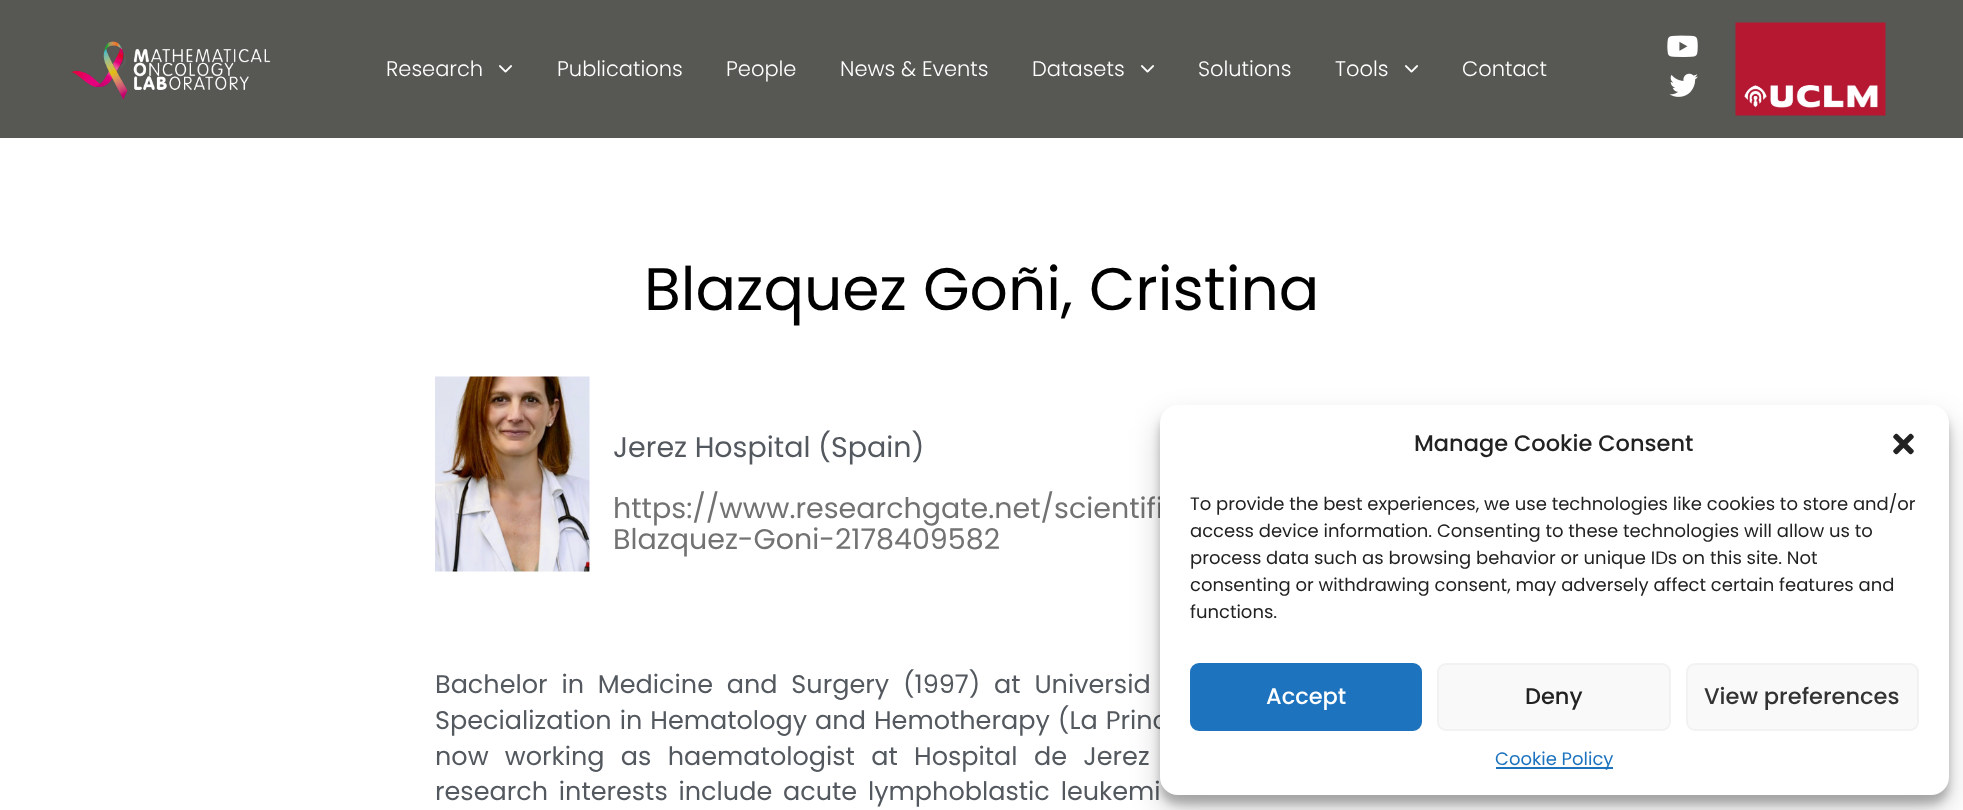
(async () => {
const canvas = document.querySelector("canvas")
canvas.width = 1963
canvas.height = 810
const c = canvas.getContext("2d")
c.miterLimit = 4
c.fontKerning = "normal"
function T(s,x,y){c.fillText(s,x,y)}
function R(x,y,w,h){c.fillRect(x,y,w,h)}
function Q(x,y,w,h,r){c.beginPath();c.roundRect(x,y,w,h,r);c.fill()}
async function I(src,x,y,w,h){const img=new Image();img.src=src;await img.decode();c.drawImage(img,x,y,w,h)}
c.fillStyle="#fff"
R(0,0,1963,810)
c.fillStyle="#575754"
R(0,0,1963,138)
await I("1.png",71,41,200,60)
c.font="300 21px Poppins"
c.fillStyle="#fff"
T("Research",386,76)
await I("2.png",499,65,13,8)
T("Publications",557,76)
T("People",726,76)
T("News & Events",840,76)
T("Datasets",1032,76)
await I("2.png",1141,65,13,8)
T("Solutions",1198,76)
T("Tools",1335,76)
await I("2.png",1405,65,13,8)
T("Contact",1462,76)
await I("3.png",1667,35,31,22)
await I("4.png",1669,73,29,24)
await I("5.png",1735,22,151,94)
c.font="60px Poppins"
c.fillStyle="#000"
T("Blazquez Goñi, Cristina",644,310)
await I("6.png",435,376,155,196)
c.font="28.5px Poppins"
c.fillStyle="#54595f"
T("Jerez Hospital (Spain)",613,457)
c.fillStyle="#727272"
T("https://www.researchgate.net/scientifi",613,518)
T("Blazquez-Goni-2178409582",613,549)
c.wordSpacing="7px"
c.font="25.5px Poppins"
c.fillStyle="#54595f"
T("Bachelor in Medicine and Surgery (1997) at Universid",435,693)
c.wordSpacing="1.25px"
T("Specialization in Hematology and Hemotherapy (La Princ",435,729)
c.wordSpacing="9.5px"
T("now working as haematologist at Hospital de Jerez",435,765)
c.wordSpacing="4px"
T("research interests include acute lymphoblastic leukemi",435,800)
c.fillStyle="#0000003b"
c.filter="blur(4.5px)"
c.beginPath()
c.roundRect(1160,414,789,390,18)
c.fill()
c.filter="none"
c.fillStyle="#00000030"
c.filter="blur(15px)"
c.beginPath()
c.roundRect(1160,420,789,390,18)
c.fill()
c.filter="none"
c.fillStyle="#fff"
Q(1160,405,789,390,18)
c.wordSpacing="0px"
c.font="500 22.5px Poppins"
c.fillStyle="#222"
T("Manage Cookie Consent",1414,451)
await I("7.png",1893,433,21,22)
c.font="18px Poppins"
T("To provide the best experiences, we use technologies like cookies to store and/or",1190,510)
T("access device information. Consenting to these technologies will allow us to",1190,537)
T("process data such as browsing behavior or unique IDs on this site. Not",1190,564)
T("consenting or withdrawing consent, may adversely affect certain features and",1190,591)
T("functions.",1190,618)
c.fillStyle="#1e73be"
c.beginPath()
c.roundRect(1191,664,230,66,8)
c.fill()
c.strokeStyle="#1e73be"
c.lineWidth=2
c.stroke()
c.font="500 22.5px Poppins"
c.fillStyle="#fff"
T("Accept",1266,704)
c.fillStyle="#f9f9f9"
c.beginPath()
c.roundRect(1438,664,232,66,8)
c.fill()
c.strokeStyle="#f2f2f2"
c.stroke()
c.fillStyle="#222"
T("Deny",1525,704)
c.fillStyle="#f9f9f9"
c.beginPath()
c.roundRect(1687,664,231,66,8)
c.fill()
c.stroke()
c.fillStyle="#333"
T("View preferences",1704,704)
c.fillStyle="#1e73be"
R(1496,767,117,2)
c.font="18px Poppins"
T("Cookie Policy",1495,765)
})()
